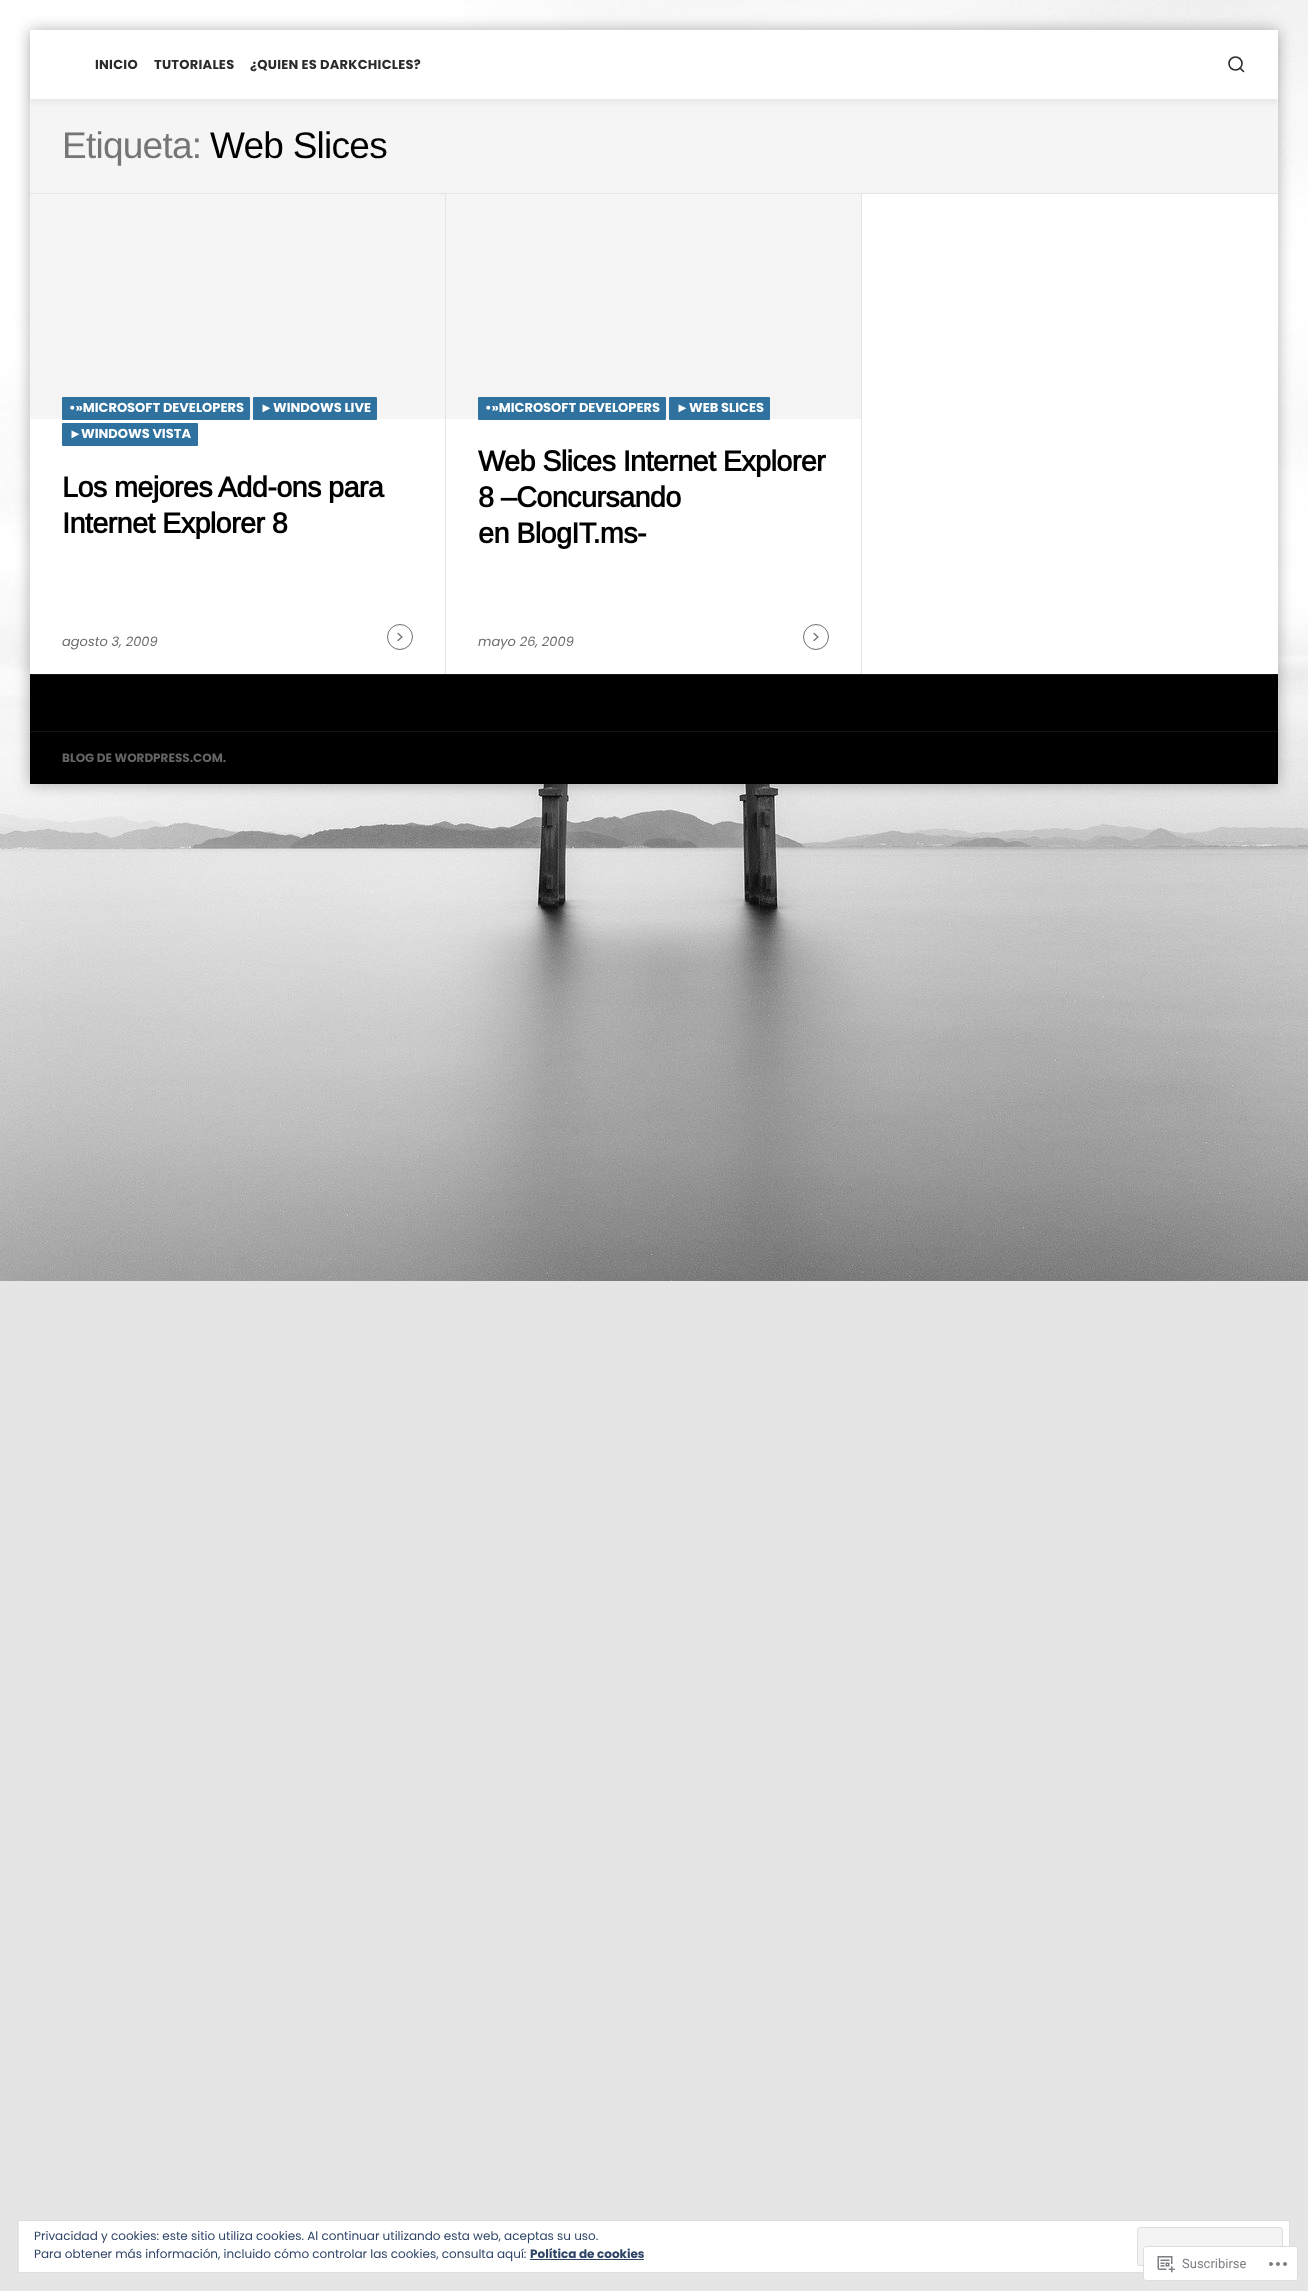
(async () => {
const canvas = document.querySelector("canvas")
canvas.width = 1308
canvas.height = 2291
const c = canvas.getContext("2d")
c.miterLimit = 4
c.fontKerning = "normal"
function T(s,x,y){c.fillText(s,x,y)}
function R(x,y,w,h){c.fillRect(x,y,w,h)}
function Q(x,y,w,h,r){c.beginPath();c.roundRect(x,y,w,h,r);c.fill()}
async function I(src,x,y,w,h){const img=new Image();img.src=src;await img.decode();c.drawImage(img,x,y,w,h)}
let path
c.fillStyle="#e5e5e5"
R(0,0,1308,2291)
await I("1.png",0,0,1308,1281)
c.fillStyle="#0000004d"
c.filter="blur(7.5px)"
c.beginPath()
c.rect(30,30,1248,754)
c.fill()
c.filter="none"
c.fillStyle="#fff"
R(30,30,1248,644)
c.fillStyle="#f5f5f5"
R(30,99,1248,94)
c.save()
path = new Path2D("M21 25h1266v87h-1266zm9 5h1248v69h-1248z")
c.clip(path,"evenodd")
c.fillStyle="#0000000d"
c.filter="blur(2.5px)"
c.beginPath()
c.rect(30,34,1248,69)
c.fill()
c.filter="none"
c.restore()
c.letterSpacing="0.25px"
c.font="bold 13px Poppins"
c.fillStyle="#2b2b2b"
T("INICIO",95,69)
T("TUTORIALES",154,69)
T("¿QUIEN ES DARKCHICLES?",250,69)
c.beginPath()
c.arc(1235.5,63.5,6.5,0,7)
c.strokeStyle="#2b2b2b"
c.lineWidth=1.6
c.stroke()
path = new Path2D("M1243.5 71.5l-3.5-3.5")
c.lineCap="round"
c.lineJoin="round"
c.stroke(path)
c.fillStyle="#e5e5e5"
R(30,193,1248,1)
c.letterSpacing="-0.75px"
c.font="37px Arimo"
c.fillStyle="#757575"
T("Etiqueta:",62,158)
c.fillStyle="#000"
T("Web Slices",210,158)
c.fillStyle="#e5e5e5"
R(445,194,1,480)
c.fillStyle="#f5f5f5"
R(30,194,415,225)
c.fillStyle="#2f729f"
Q(62,397,188,23,1)
c.letterSpacing="0px"
c.font="bold 13px Poppins"
c.fillStyle="#fff"
T("•»MICROSOFT DEVELOPERS",69,412)
c.fillStyle="#2f729f"
Q(253,397,124,23,1)
c.font="bold 13px Liberation Sans"
c.fillStyle="#fff"
T("►",260,412)
c.font="bold 13px Poppins"
T("WINDOWS LIVE",273,412)
c.fillStyle="#2f729f"
Q(62,423,136,23,1)
c.font="bold 13px Liberation Sans"
c.fillStyle="#fff"
T("►",69,438)
c.font="bold 13px Poppins"
T("WINDOWS VISTA",81,438)
c.letterSpacing="-0.6px"
c.font="bold 28.75px Arimo"
c.fillStyle="#000"
T("Los mejores Add-ons para",62,497)
T("Internet Explorer 8",62,533)
c.letterSpacing="0px"
c.font="italic 13px Poppins"
c.fillStyle="#6d6d6d"
T("agosto 3, 2009",62,646)
c.beginPath()
c.arc(400,637,12.5,0,7)
c.strokeStyle="#6d6d6d"
c.lineWidth=1
c.stroke()
path = new Path2D("M398 640.5l4-3.5l-4-3.5")
c.lineWidth=1.2
c.stroke(path)
c.fillStyle="#e5e5e5"
R(861,194,1,480)
c.fillStyle="#f5f5f5"
R(446,194,415,225)
c.fillStyle="#2f729f"
Q(478,397,188,23,1)
c.font="bold 13px Poppins"
c.fillStyle="#fff"
T("•»MICROSOFT DEVELOPERS",485,412)
c.fillStyle="#2f729f"
Q(669,397,101,23,1)
c.font="bold 13px Liberation Sans"
c.fillStyle="#fff"
T("►",676,412)
c.font="bold 13px Poppins"
T("WEB SLICES",689,412)
c.letterSpacing="-0.6px"
c.font="bold 28.75px Arimo"
c.fillStyle="#000"
T("Web Slices Internet Explorer",478,471)
T("8 –Concursando",478,507)
T("en BlogIT.ms-",478,543)
c.letterSpacing="0px"
c.font="italic 13px Poppins"
c.fillStyle="#6d6d6d"
T("mayo 26, 2009",478,646)
c.beginPath()
c.arc(816,637,12.5,0,7)
c.lineWidth=1
c.stroke()
path = new Path2D("M814 640.5l4-3.5l-4-3.5")
c.lineWidth=1.2
c.stroke(path)
c.fillStyle="#000"
R(30,675,1248,109)
c.fillStyle="#141414"
R(30,674,1248,1)
R(30,731,1248,1)
c.font="bold 12px Poppins"
c.fillStyle="#656565"
T("BLOG DE WORDPRESS.COM.",62,762)
c.fillStyle="#fff"
c.beginPath()
c.rect(18.5,2220.5,1271,52)
c.fill()
c.strokeStyle="#dedede"
c.lineWidth=1
c.lineJoin="miter"
c.stroke()
c.font="12px Poppins"
c.fillStyle="#2e4467"
T("Privacidad y cookies: este sitio utiliza cookies. Al continuar utilizando esta web, aceptas su uso.",34,2240)
c.fillStyle="#f3f3f3"
c.beginPath()
c.roundRect(1137.5,2227.5,145,38,2.5)
c.fill()
c.stroke()
c.fillStyle="#2e4467"
T("Para obtener más información, incluido cómo controlar las cookies, consulta aquí:",34,2258)
c.font="bold 12px Poppins"
T("Política de cookies",530,2258)
R(530,2259,114,1)
c.fillStyle="#fffffffa"
Q(1143,2246,155,35,3)
c.beginPath()
c.roundRect(1143.5,2246.5,154,34,2.5)
c.strokeStyle="#dcdcdefa"
c.stroke()
await I("2.png",1157,2256,18,17)
c.font="13px Roboto"
c.fillStyle="#7b7f84"
T("Suscribirse",1182,2268)
await I("3.png",1269,2262,18,4)
})()
